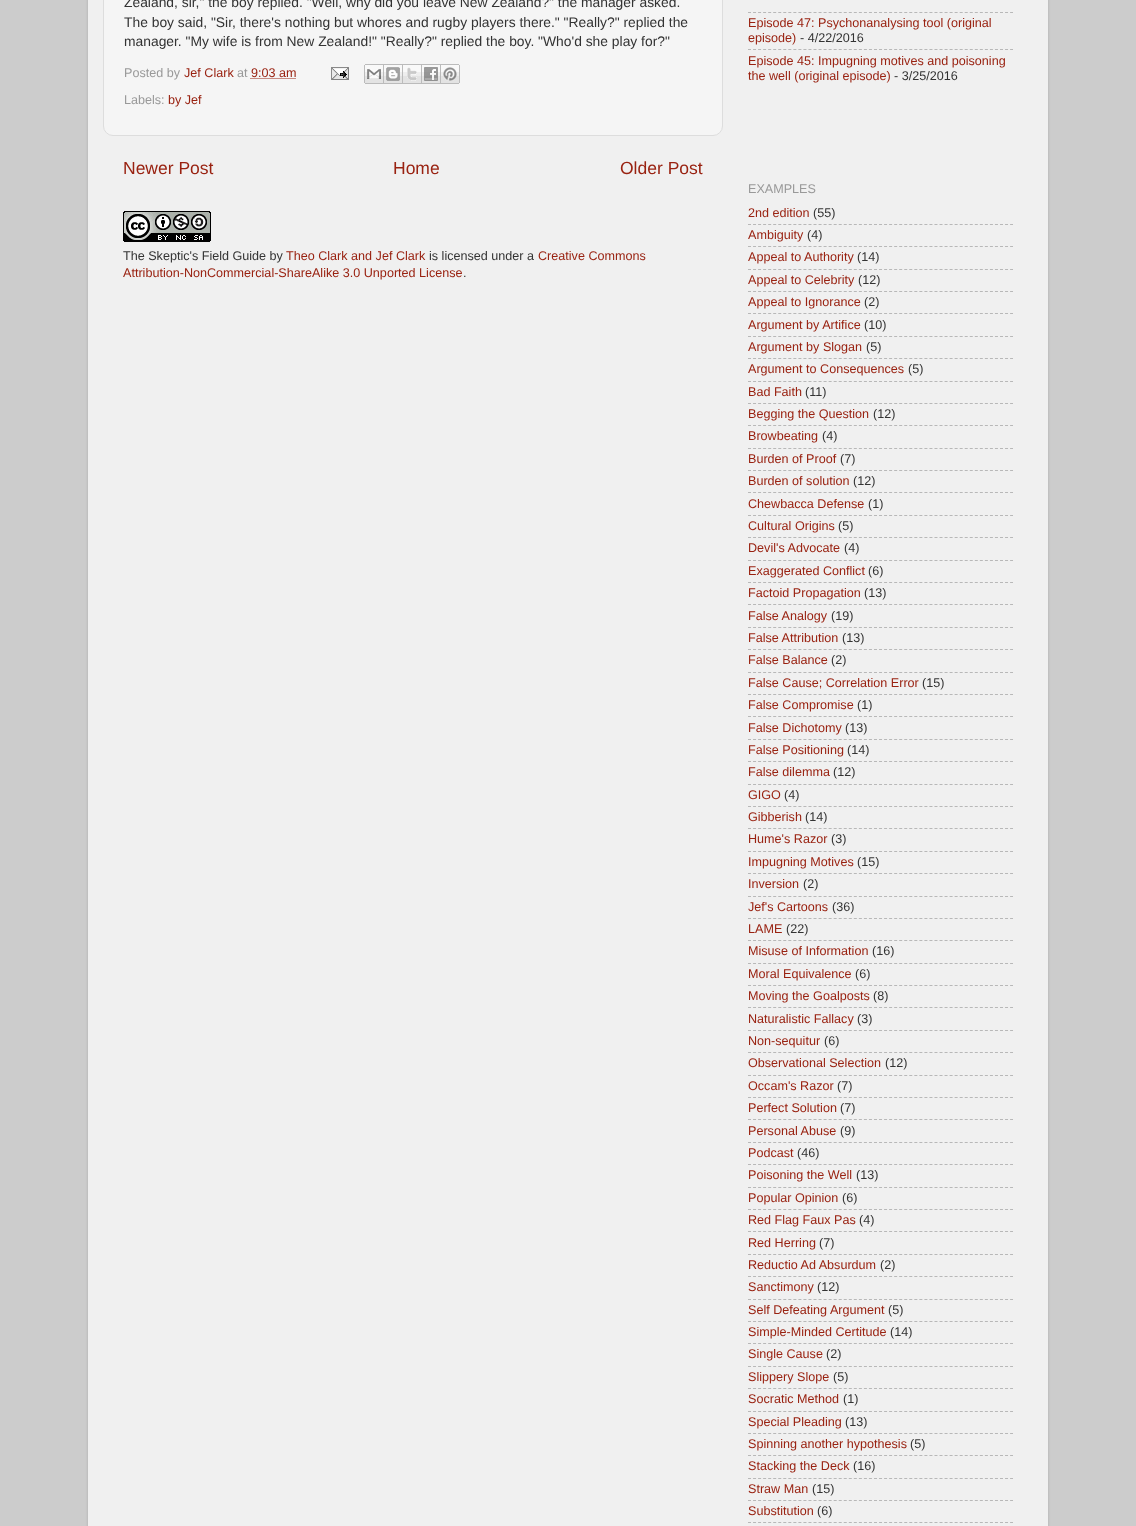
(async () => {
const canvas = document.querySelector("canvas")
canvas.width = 1136
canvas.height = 1526
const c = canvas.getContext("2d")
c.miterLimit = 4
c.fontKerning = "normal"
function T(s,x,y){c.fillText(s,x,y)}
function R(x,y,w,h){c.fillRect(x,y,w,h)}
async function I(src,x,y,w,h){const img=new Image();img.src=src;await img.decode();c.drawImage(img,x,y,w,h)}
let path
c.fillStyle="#ccc"
R(0,0,1136,1526)
c.fillStyle="#00000026"
c.filter="blur(1.5px)"
c.beginPath()
c.roundRect(88,-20,960,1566,15)
c.fill()
c.filter="none"
c.fillStyle="#f0f0f0"
R(88,0,960,1526)
c.fillStyle="#f5f5f5"
c.beginPath()
c.roundRect(103.5,-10.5,619,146,9.5)
c.fill()
c.strokeStyle="#ddd"
c.stroke()
c.font="13.85px Liberation Sans"
c.fillStyle="#333"
T("Zealand, sir,\" the boy replied. \"Well, why did you leave New Zealand?\" the manager asked.",124,7)
T("The boy said, \"Sir, there's nothing but whores and rugby players there.\" \"Really?\" replied the",124,27)
T("manager. \"My wife is from New Zealand!\" \"Really?\" replied the boy. \"Who'd she play for?\"",124,46)
c.font="12.6px Liberation Sans"
c.fillStyle="#999"
T("Posted by",124,77)
c.fillStyle="#921"
T("Jef Clark",184,77)
c.fillStyle="#999"
T("at",237,77)
c.fillStyle="#921"
T("9:03 am",251,77)
path = new Path2D("M250.5 78.5h45.5")
c.strokeStyle="#921"
c.setLineDash([1,1])
c.stroke(path)
await I("1.png",331,67,18,13)
await I("2.png",364,64,20,20)
await I("3.png",384,64,19,20)
await I("4.png",403,64,19,20)
await I("5.png",422,64,19,20)
await I("6.png",441,64,19,20)
c.fillStyle="#999"
T("Labels:",124,104)
c.fillStyle="#921"
T("by Jef",168,104)
c.font="17.5px Liberation Sans"
T("Newer Post",123,174)
T("Home",393,174)
T("Older Post",620,174)
await I("7.png",123,211,88,31)
c.font="12.6px Liberation Sans"
c.fillStyle="#333"
T("The Skeptic's Field Guide by",123,260)
c.fillStyle="#921"
T("Theo Clark and Jef Clark",286,260)
c.fillStyle="#333"
T("is licensed under a",429,260)
c.fillStyle="#921"
T("Creative Commons",538,260)
T("Attribution-NonCommercial-ShareAlike 3.0 Unported License",123,277)
c.fillStyle="#333"
T(".",463,277)
path = new Path2D("M748 12.5h265")
c.strokeStyle="#b8b8b8"
c.setLineDash([3,2.04])
c.stroke(path)
c.fillStyle="#921"
T("Episode 47: Psychonanalysing tool (original",748,27)
T("episode)",748,42)
c.fillStyle="#333"
T("- 4/22/2016",800,42)
path = new Path2D("M748 49.5h265")
c.stroke(path)
c.fillStyle="#921"
T("Episode 45: Impugning motives and poisoning",748,65)
T("the well (original episode)",748,80)
c.fillStyle="#333"
T("- 3/25/2016",894,80)
c.fillStyle="#999"
T("EXAMPLES",748,193)
c.fillStyle="#921"
T("2nd edition",748,217)
c.fillStyle="#333"
T("(55)",813,217)
path = new Path2D("M748 224.5h265")
c.stroke(path)
c.fillStyle="#921"
T("Ambiguity",748,239)
c.fillStyle="#333"
T("(4)",807,239)
path = new Path2D("M748 246.5h265")
c.stroke(path)
c.fillStyle="#921"
T("Appeal to Authority",748,261)
c.fillStyle="#333"
T("(14)",857,261)
path = new Path2D("M748 269.5h265")
c.stroke(path)
c.fillStyle="#921"
T("Appeal to Celebrity",748,284)
c.fillStyle="#333"
T("(12)",858,284)
path = new Path2D("M748 291.5h265")
c.stroke(path)
c.fillStyle="#921"
T("Appeal to Ignorance",748,306)
c.fillStyle="#333"
T("(2)",864,306)
path = new Path2D("M748 313.5h265")
c.stroke(path)
c.fillStyle="#921"
T("Argument by Artifice",748,329)
c.fillStyle="#333"
T("(10)",864,329)
path = new Path2D("M748 336.5h265")
c.stroke(path)
c.fillStyle="#921"
T("Argument by Slogan",748,351)
c.fillStyle="#333"
T("(5)",866,351)
path = new Path2D("M748 358.5h265")
c.stroke(path)
c.fillStyle="#921"
T("Argument to Consequences",748,373)
c.fillStyle="#333"
T("(5)",908,373)
path = new Path2D("M748 381.5h265")
c.stroke(path)
c.fillStyle="#921"
T("Bad Faith",748,396)
c.fillStyle="#333"
T("(11)",805,396)
path = new Path2D("M748 403.5h265")
c.stroke(path)
c.fillStyle="#921"
T("Begging the Question",748,418)
c.fillStyle="#333"
T("(12)",873,418)
path = new Path2D("M748 425.5h265")
c.stroke(path)
c.fillStyle="#921"
T("Browbeating",748,440)
c.fillStyle="#333"
T("(4)",822,440)
path = new Path2D("M748 448.5h265")
c.stroke(path)
c.fillStyle="#921"
T("Burden of Proof",748,463)
c.fillStyle="#333"
T("(7)",840,463)
path = new Path2D("M748 470.5h265")
c.stroke(path)
c.fillStyle="#921"
T("Burden of solution",748,485)
c.fillStyle="#333"
T("(12)",853,485)
path = new Path2D("M748 492.5h265")
c.stroke(path)
c.fillStyle="#921"
T("Chewbacca Defense",748,508)
c.fillStyle="#333"
T("(1)",868,508)
path = new Path2D("M748 515.5h265")
c.stroke(path)
c.fillStyle="#921"
T("Cultural Origins",748,530)
c.fillStyle="#333"
T("(5)",838,530)
path = new Path2D("M748 537.5h265")
c.stroke(path)
c.fillStyle="#921"
T("Devil's Advocate",748,552)
c.fillStyle="#333"
T("(4)",844,552)
path = new Path2D("M748 560.5h265")
c.stroke(path)
c.fillStyle="#921"
T("Exaggerated Conflict",748,575)
c.fillStyle="#333"
T("(6)",868,575)
path = new Path2D("M748 582.5h265")
c.stroke(path)
c.fillStyle="#921"
T("Factoid Propagation",748,597)
c.fillStyle="#333"
T("(13)",864,597)
path = new Path2D("M748 604.5h265")
c.stroke(path)
c.fillStyle="#921"
T("False Analogy",748,620)
c.fillStyle="#333"
T("(19)",831,620)
path = new Path2D("M748 627.5h265")
c.stroke(path)
c.fillStyle="#921"
T("False Attribution",748,642)
c.fillStyle="#333"
T("(13)",842,642)
path = new Path2D("M748 649.5h265")
c.stroke(path)
c.fillStyle="#921"
T("False Balance",748,664)
c.fillStyle="#333"
T("(2)",831,664)
path = new Path2D("M748 672.5h265")
c.stroke(path)
c.fillStyle="#921"
T("False Cause; Correlation Error",748,687)
c.fillStyle="#333"
T("(15)",922,687)
path = new Path2D("M748 694.5h265")
c.stroke(path)
c.fillStyle="#921"
T("False Compromise",748,709)
c.fillStyle="#333"
T("(1)",857,709)
path = new Path2D("M748 716.5h265")
c.stroke(path)
c.fillStyle="#921"
T("False Dichotomy",748,732)
c.fillStyle="#333"
T("(13)",845,732)
path = new Path2D("M748 739.5h265")
c.stroke(path)
c.fillStyle="#921"
T("False Positioning",748,754)
c.fillStyle="#333"
T("(14)",847,754)
path = new Path2D("M748 761.5h265")
c.stroke(path)
c.fillStyle="#921"
T("False dilemma",748,776)
c.fillStyle="#333"
T("(12)",833,776)
path = new Path2D("M748 784.5h265")
c.stroke(path)
c.fillStyle="#921"
T("GIGO",748,799)
c.fillStyle="#333"
T("(4)",784,799)
path = new Path2D("M748 806.5h265")
c.stroke(path)
c.fillStyle="#921"
T("Gibberish",748,821)
c.fillStyle="#333"
T("(14)",805,821)
path = new Path2D("M748 828.5h265")
c.stroke(path)
c.fillStyle="#921"
T("Hume's Razor",748,843)
c.fillStyle="#333"
T("(3)",831,843)
path = new Path2D("M748 851.5h265")
c.stroke(path)
c.fillStyle="#921"
T("Impugning Motives",748,866)
c.fillStyle="#333"
T("(15)",857,866)
path = new Path2D("M748 873.5h265")
c.stroke(path)
c.fillStyle="#921"
T("Inversion",748,888)
c.fillStyle="#333"
T("(2)",803,888)
path = new Path2D("M748 896.5h265")
c.stroke(path)
c.fillStyle="#921"
T("Jef's Cartoons",748,911)
c.fillStyle="#333"
T("(36)",832,911)
path = new Path2D("M748 918.5h265")
c.stroke(path)
c.fillStyle="#921"
T("LAME",748,933)
c.fillStyle="#333"
T("(22)",786,933)
path = new Path2D("M748 940.5h265")
c.stroke(path)
c.fillStyle="#921"
T("Misuse of Information",748,955)
c.fillStyle="#333"
T("(16)",872,955)
path = new Path2D("M748 963.5h265")
c.stroke(path)
c.fillStyle="#921"
T("Moral Equivalence",748,978)
c.fillStyle="#333"
T("(6)",855,978)
path = new Path2D("M748 985.5h265")
c.stroke(path)
c.fillStyle="#921"
T("Moving the Goalposts",748,1000)
c.fillStyle="#333"
T("(8)",873,1000)
path = new Path2D("M748 1007.5h265")
c.stroke(path)
c.fillStyle="#921"
T("Naturalistic Fallacy",748,1023)
c.fillStyle="#333"
T("(3)",857,1023)
path = new Path2D("M748 1030.5h265")
c.stroke(path)
c.fillStyle="#921"
T("Non-sequitur",748,1045)
c.fillStyle="#333"
T("(6)",824,1045)
path = new Path2D("M748 1052.5h265")
c.stroke(path)
c.fillStyle="#921"
T("Observational Selection",748,1067)
c.fillStyle="#333"
T("(12)",885,1067)
path = new Path2D("M748 1075.5h265")
c.stroke(path)
c.fillStyle="#921"
T("Occam's Razor",748,1090)
c.fillStyle="#333"
T("(7)",837,1090)
path = new Path2D("M748 1097.5h265")
c.stroke(path)
c.fillStyle="#921"
T("Perfect Solution",748,1112)
c.fillStyle="#333"
T("(7)",840,1112)
path = new Path2D("M748 1119.5h265")
c.stroke(path)
c.fillStyle="#921"
T("Personal Abuse",748,1135)
c.fillStyle="#333"
T("(9)",840,1135)
path = new Path2D("M748 1142.5h265")
c.stroke(path)
c.fillStyle="#921"
T("Podcast",748,1157)
c.fillStyle="#333"
T("(46)",797,1157)
path = new Path2D("M748 1164.5h265")
c.stroke(path)
c.fillStyle="#921"
T("Poisoning the Well",748,1179)
c.fillStyle="#333"
T("(13)",856,1179)
path = new Path2D("M748 1187.5h265")
c.stroke(path)
c.fillStyle="#921"
T("Popular Opinion",748,1202)
c.fillStyle="#333"
T("(6)",842,1202)
path = new Path2D("M748 1209.5h265")
c.stroke(path)
c.fillStyle="#921"
T("Red Flag Faux Pas",748,1224)
c.fillStyle="#333"
T("(4)",859,1224)
path = new Path2D("M748 1231.5h265")
c.stroke(path)
c.fillStyle="#921"
T("Red Herring",748,1247)
c.fillStyle="#333"
T("(7)",819,1247)
path = new Path2D("M748 1254.5h265")
c.stroke(path)
c.fillStyle="#921"
T("Reductio Ad Absurdum",748,1269)
c.fillStyle="#333"
T("(2)",880,1269)
path = new Path2D("M748 1276.5h265")
c.stroke(path)
c.fillStyle="#921"
T("Sanctimony",748,1291)
c.fillStyle="#333"
T("(12)",817,1291)
path = new Path2D("M748 1299.5h265")
c.stroke(path)
c.fillStyle="#921"
T("Self Defeating Argument",748,1314)
c.fillStyle="#333"
T("(5)",888,1314)
path = new Path2D("M748 1321.5h265")
c.stroke(path)
c.fillStyle="#921"
T("Simple-Minded Certitude",748,1336)
c.fillStyle="#333"
T("(14)",890,1336)
path = new Path2D("M748 1343.5h265")
c.stroke(path)
c.fillStyle="#921"
T("Single Cause",748,1358)
c.fillStyle="#333"
T("(2)",826,1358)
path = new Path2D("M748 1366.5h265")
c.stroke(path)
c.fillStyle="#921"
T("Slippery Slope",748,1381)
c.fillStyle="#333"
T("(5)",833,1381)
path = new Path2D("M748 1388.5h265")
c.stroke(path)
c.fillStyle="#921"
T("Socratic Method",748,1403)
c.fillStyle="#333"
T("(1)",843,1403)
path = new Path2D("M748 1411.5h265")
c.stroke(path)
c.fillStyle="#921"
T("Special Pleading",748,1426)
c.fillStyle="#333"
T("(13)",845,1426)
path = new Path2D("M748 1433.5h265")
c.stroke(path)
c.fillStyle="#921"
T("Spinning another hypothesis",748,1448)
c.fillStyle="#333"
T("(5)",910,1448)
path = new Path2D("M748 1455.5h265")
c.stroke(path)
c.fillStyle="#921"
T("Stacking the Deck",748,1470)
c.fillStyle="#333"
T("(16)",853,1470)
path = new Path2D("M748 1478.5h265")
c.stroke(path)
c.fillStyle="#921"
T("Straw Man",748,1493)
c.fillStyle="#333"
T("(15)",812,1493)
path = new Path2D("M748 1500.5h265")
c.stroke(path)
c.fillStyle="#921"
T("Substitution",748,1515)
c.fillStyle="#333"
T("(6)",817,1515)
path = new Path2D("M748 1522.5h265")
c.stroke(path)
})()
